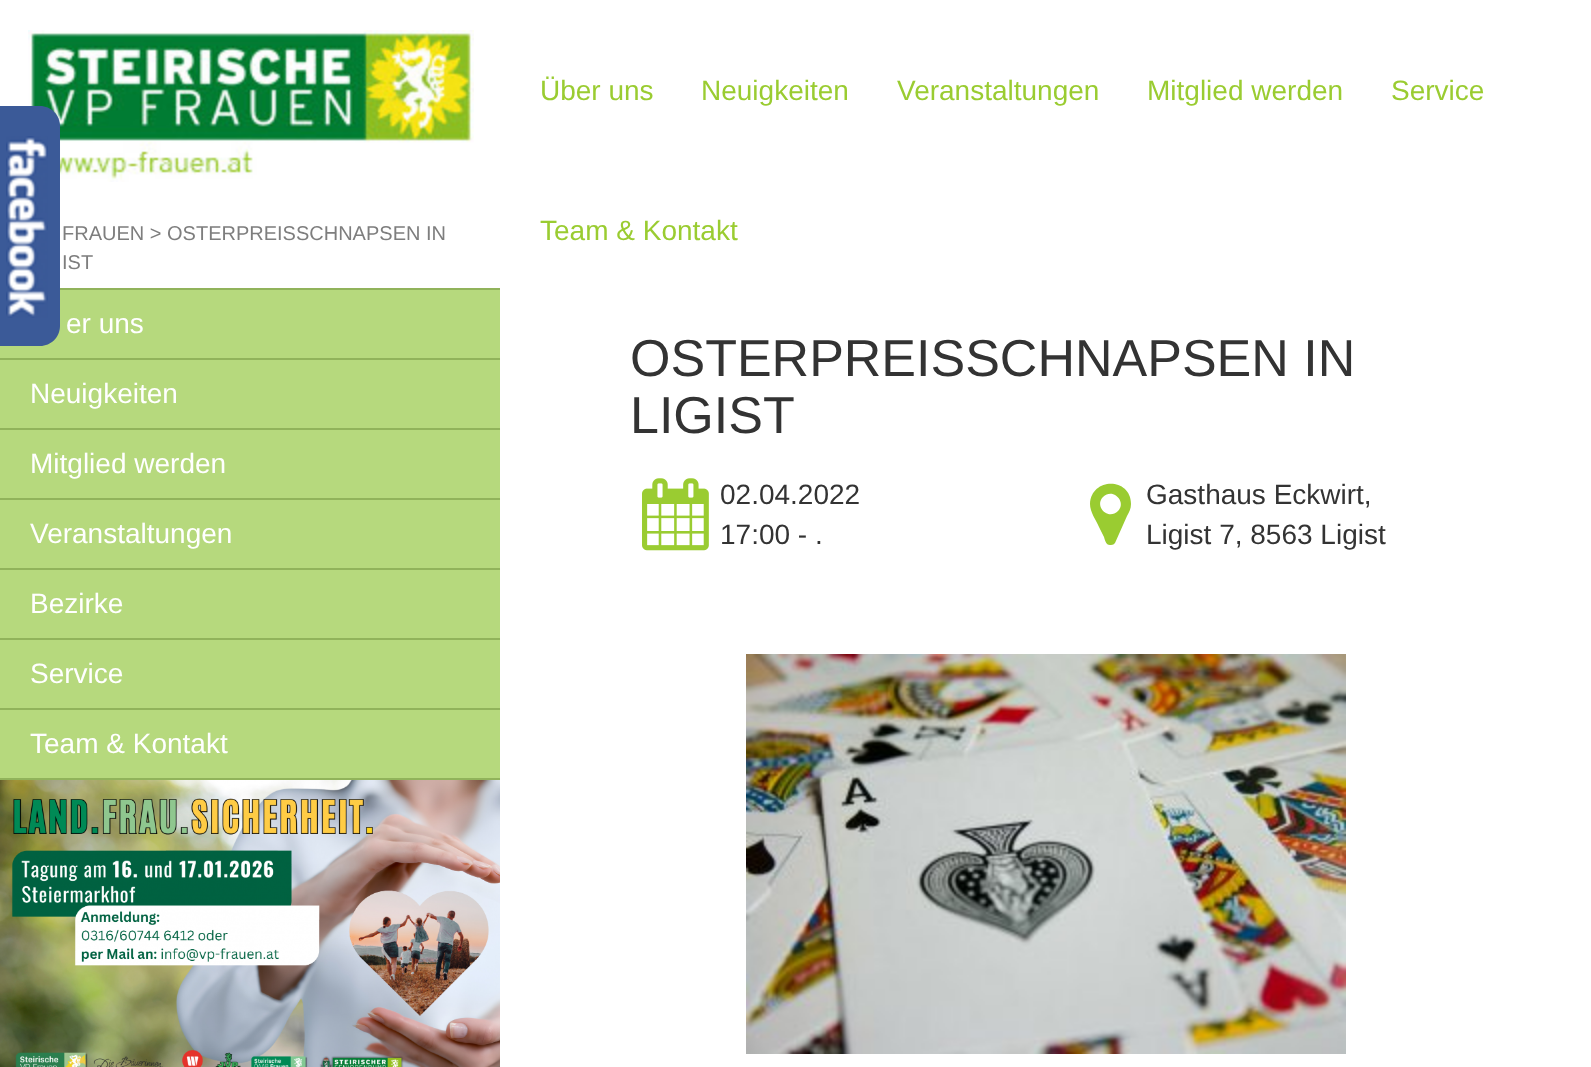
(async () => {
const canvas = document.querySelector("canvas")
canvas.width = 1591
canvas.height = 1067
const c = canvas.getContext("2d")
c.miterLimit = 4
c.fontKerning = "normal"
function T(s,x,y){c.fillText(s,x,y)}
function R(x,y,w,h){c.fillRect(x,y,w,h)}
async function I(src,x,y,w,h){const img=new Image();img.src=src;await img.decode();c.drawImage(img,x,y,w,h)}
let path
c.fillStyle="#fff"
R(0,0,1591,1067)
await I("2.png",28,30,446,152)
c.fillStyle="#b6d97d"
R(0,290,500,68)
c.fillStyle="#3b5a98"
path = new Path2D("M-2 106h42c11 0 20 9 20 20v200c0 11-9 20-20 20h-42z")
c.fill(path)
await I("1.png",6,136,42,182)
c.font="20px Liberation Sans"
c.fillStyle="#7e7e7e"
T("FRAUEN > OSTERPREISSCHNAPSEN IN",62,240)
T("IST",62,269)
c.fillStyle="#91b35b"
R(0,778,500,2)
R(60,288,440,2)
c.font="28px Liberation Sans"
c.fillStyle="#fff"
T("er uns",66,333)
c.fillStyle="#91b35b"
R(0,358,500,2)
c.fillStyle="#b6d97d"
R(0,360,500,68)
c.fillStyle="#fff"
T("Neuigkeiten",30,403)
c.fillStyle="#91b35b"
R(0,428,500,2)
c.fillStyle="#b6d97d"
R(0,430,500,68)
c.fillStyle="#fff"
T("Mitglied werden",30,473)
c.fillStyle="#91b35b"
R(0,498,500,2)
c.fillStyle="#b6d97d"
R(0,500,500,68)
c.fillStyle="#fff"
T("Veranstaltungen",30,543)
c.fillStyle="#91b35b"
R(0,568,500,2)
c.fillStyle="#b6d97d"
R(0,570,500,68)
c.fillStyle="#fff"
T("Bezirke",30,613)
c.fillStyle="#91b35b"
R(0,638,500,2)
c.fillStyle="#b6d97d"
R(0,640,500,68)
c.fillStyle="#fff"
T("Service",30,683)
c.fillStyle="#91b35b"
R(0,708,500,2)
c.fillStyle="#b6d97d"
R(0,710,500,68)
c.fillStyle="#fff"
T("Team & Kontakt",30,753)
await I("3.png",0,780,500,287)
c.fillStyle="#9acc31"
T("Über uns",540,100)
T("Neuigkeiten",701,100)
T("Veranstaltungen",897,100)
T("Mitglied werden",1147,100)
T("Service",1391,100)
T("Team & Kontakt",540,240)
c.font="52px Liberation Sans"
c.fillStyle="#333"
T("OSTERPREISSCHNAPSEN IN",630,376)
T("LIGIST",630,433)
await I("4.png",642,478,67,73)
c.font="28px Liberation Sans"
T("02.04.2022",720,504)
T("17:00 - .",720,544)
c.fillStyle="#9acc31"
path = new Path2D("M1118 511c9-9-5-24-15-14c-9 9 5 24 15 14zm13-7c0 5-2 8-4 12l-12 27c-1 1-2 2-4 2c-5 1-6-5-7-8l-5-10c-3-7-9-15-9-23c1-27 41-27 41 0z")
c.fill(path)
c.fillStyle="#333"
T("Gasthaus Eckwirt,",1146,504)
T("Ligist 7, 8563 Ligist",1146,544)
await I("5.png",746,654,600,400)
})()
